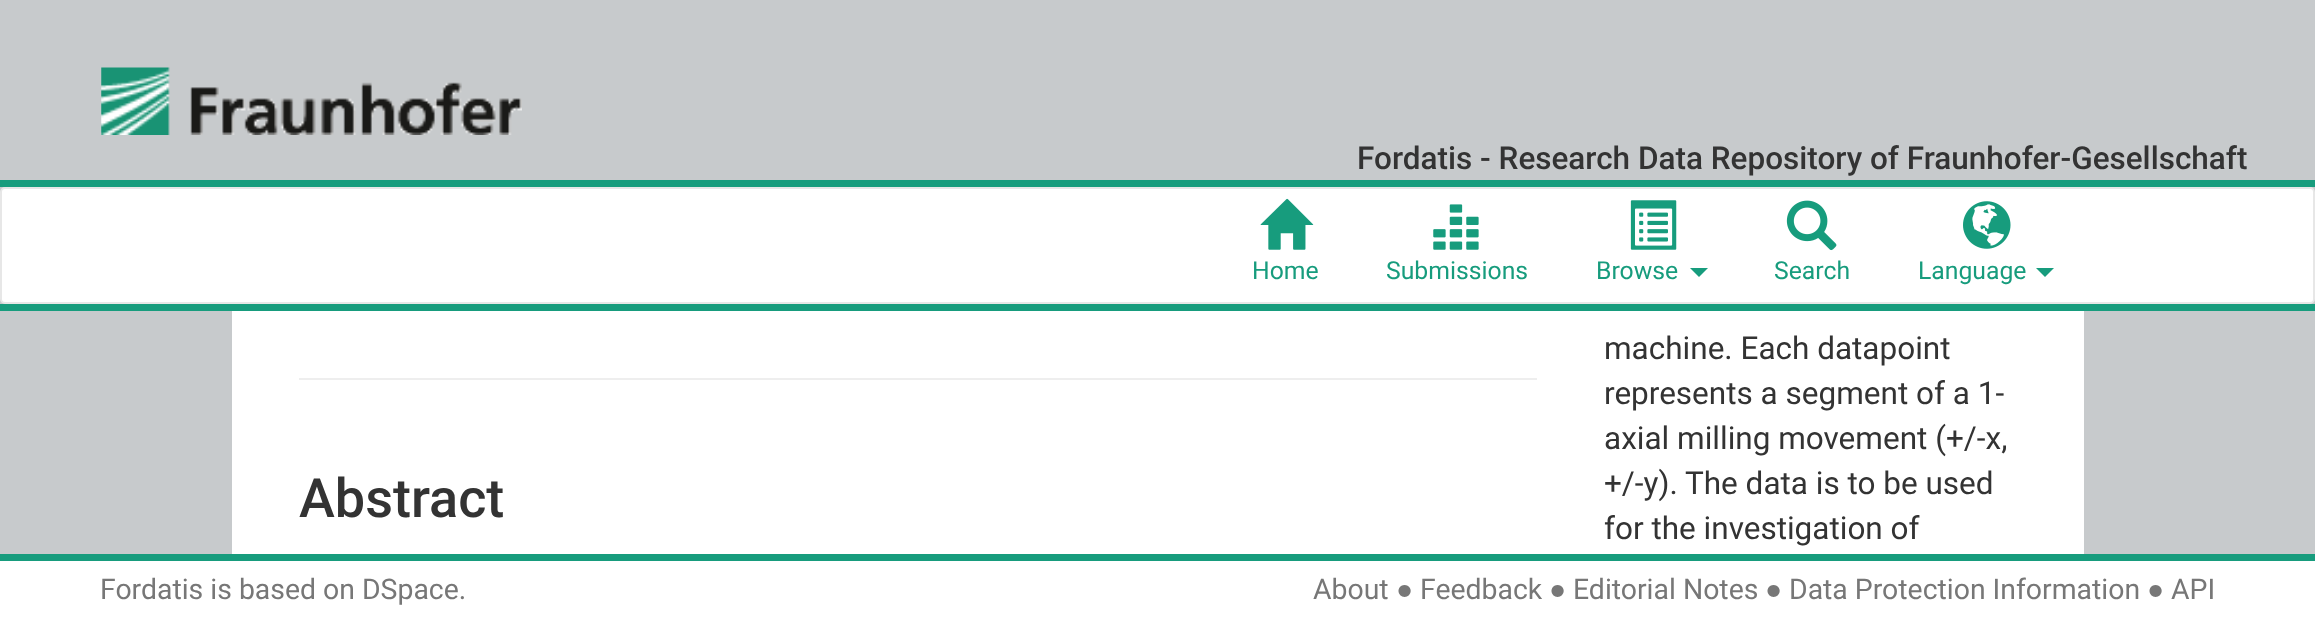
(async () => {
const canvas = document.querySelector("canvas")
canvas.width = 2315
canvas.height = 620
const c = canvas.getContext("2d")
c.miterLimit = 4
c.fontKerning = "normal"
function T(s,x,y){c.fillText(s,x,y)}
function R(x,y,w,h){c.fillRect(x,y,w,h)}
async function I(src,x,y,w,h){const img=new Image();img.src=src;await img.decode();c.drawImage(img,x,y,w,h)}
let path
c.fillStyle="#c7cacc"
R(0,0,2315,620)
c.fillStyle="#179c7d"
R(0,304,2315,7)
R(0,180,2315,7)
await I("1.png",101,67,421,68)
c.font="500 31.5px Roboto"
c.fillStyle="#333"
T("Fordatis - Research Data Repository of Fraunhofer-Gesellschaft",1357,169)
c.fillStyle="#fff"
c.beginPath()
c.roundRect(1,188,2313,115,4)
c.fill()
c.strokeStyle="#e7e7e7"
c.lineWidth=2
c.stroke()
await I("2.png",1260,198,54,52)
c.font="24.75px Roboto"
c.fillStyle="#179c7d"
T("Home",1252,279)
await I("3.png",1433,204,46,46)
T("Submissions",1386,279)
await I("4.png",1630,200,47,50)
T("Browse",1596,279)
path = new Path2D("M1690 268h18l-9 9z")
c.fill(path)
await I("5.png",1786,200,51,51)
T("Search",1774,279)
await I("6.png",1963,201,48,48)
T("Language",1918,279)
path = new Path2D("M2036 268h18l-9 9z")
c.fill(path)
c.fillStyle="#fff"
R(232,311,1852,243)
c.fillStyle="#eee"
R(299,378,1238,2)
c.font="500 54px Roboto"
c.fillStyle="#333"
T("Abstract",299,517)
c.font="31.5px Roboto"
T("machine. Each datapoint",1604,359)
T("represents a segment of a 1-",1604,404)
T("axial milling movement (+/-x,",1604,449)
T("+/-y). The data is to be used",1604,494)
T("for the investigation of",1604,539)
c.fillStyle="#fff"
R(0,561,2315,59)
c.fillStyle="#179c7d"
R(0,554,2315,7)
c.font="28.4px Roboto"
c.fillStyle="#777"
T("Fordatis is based on DSpace.",100,599)
T("About",1313,599)
c.font="28.4px Liberation Sans"
T("●",1396,599)
c.font="28.4px Roboto"
T("Feedback",1420,599)
c.font="28.4px Liberation Sans"
T("●",1549,599)
c.font="28.4px Roboto"
T("Editorial Notes",1573,599)
c.font="28.4px Liberation Sans"
T("●",1765,599)
c.font="28.4px Roboto"
T("Data Protection Information",1789,599)
c.font="28.4px Liberation Sans"
T("●",2147,599)
c.font="28.4px Roboto"
T("API",2171,599)
})()
